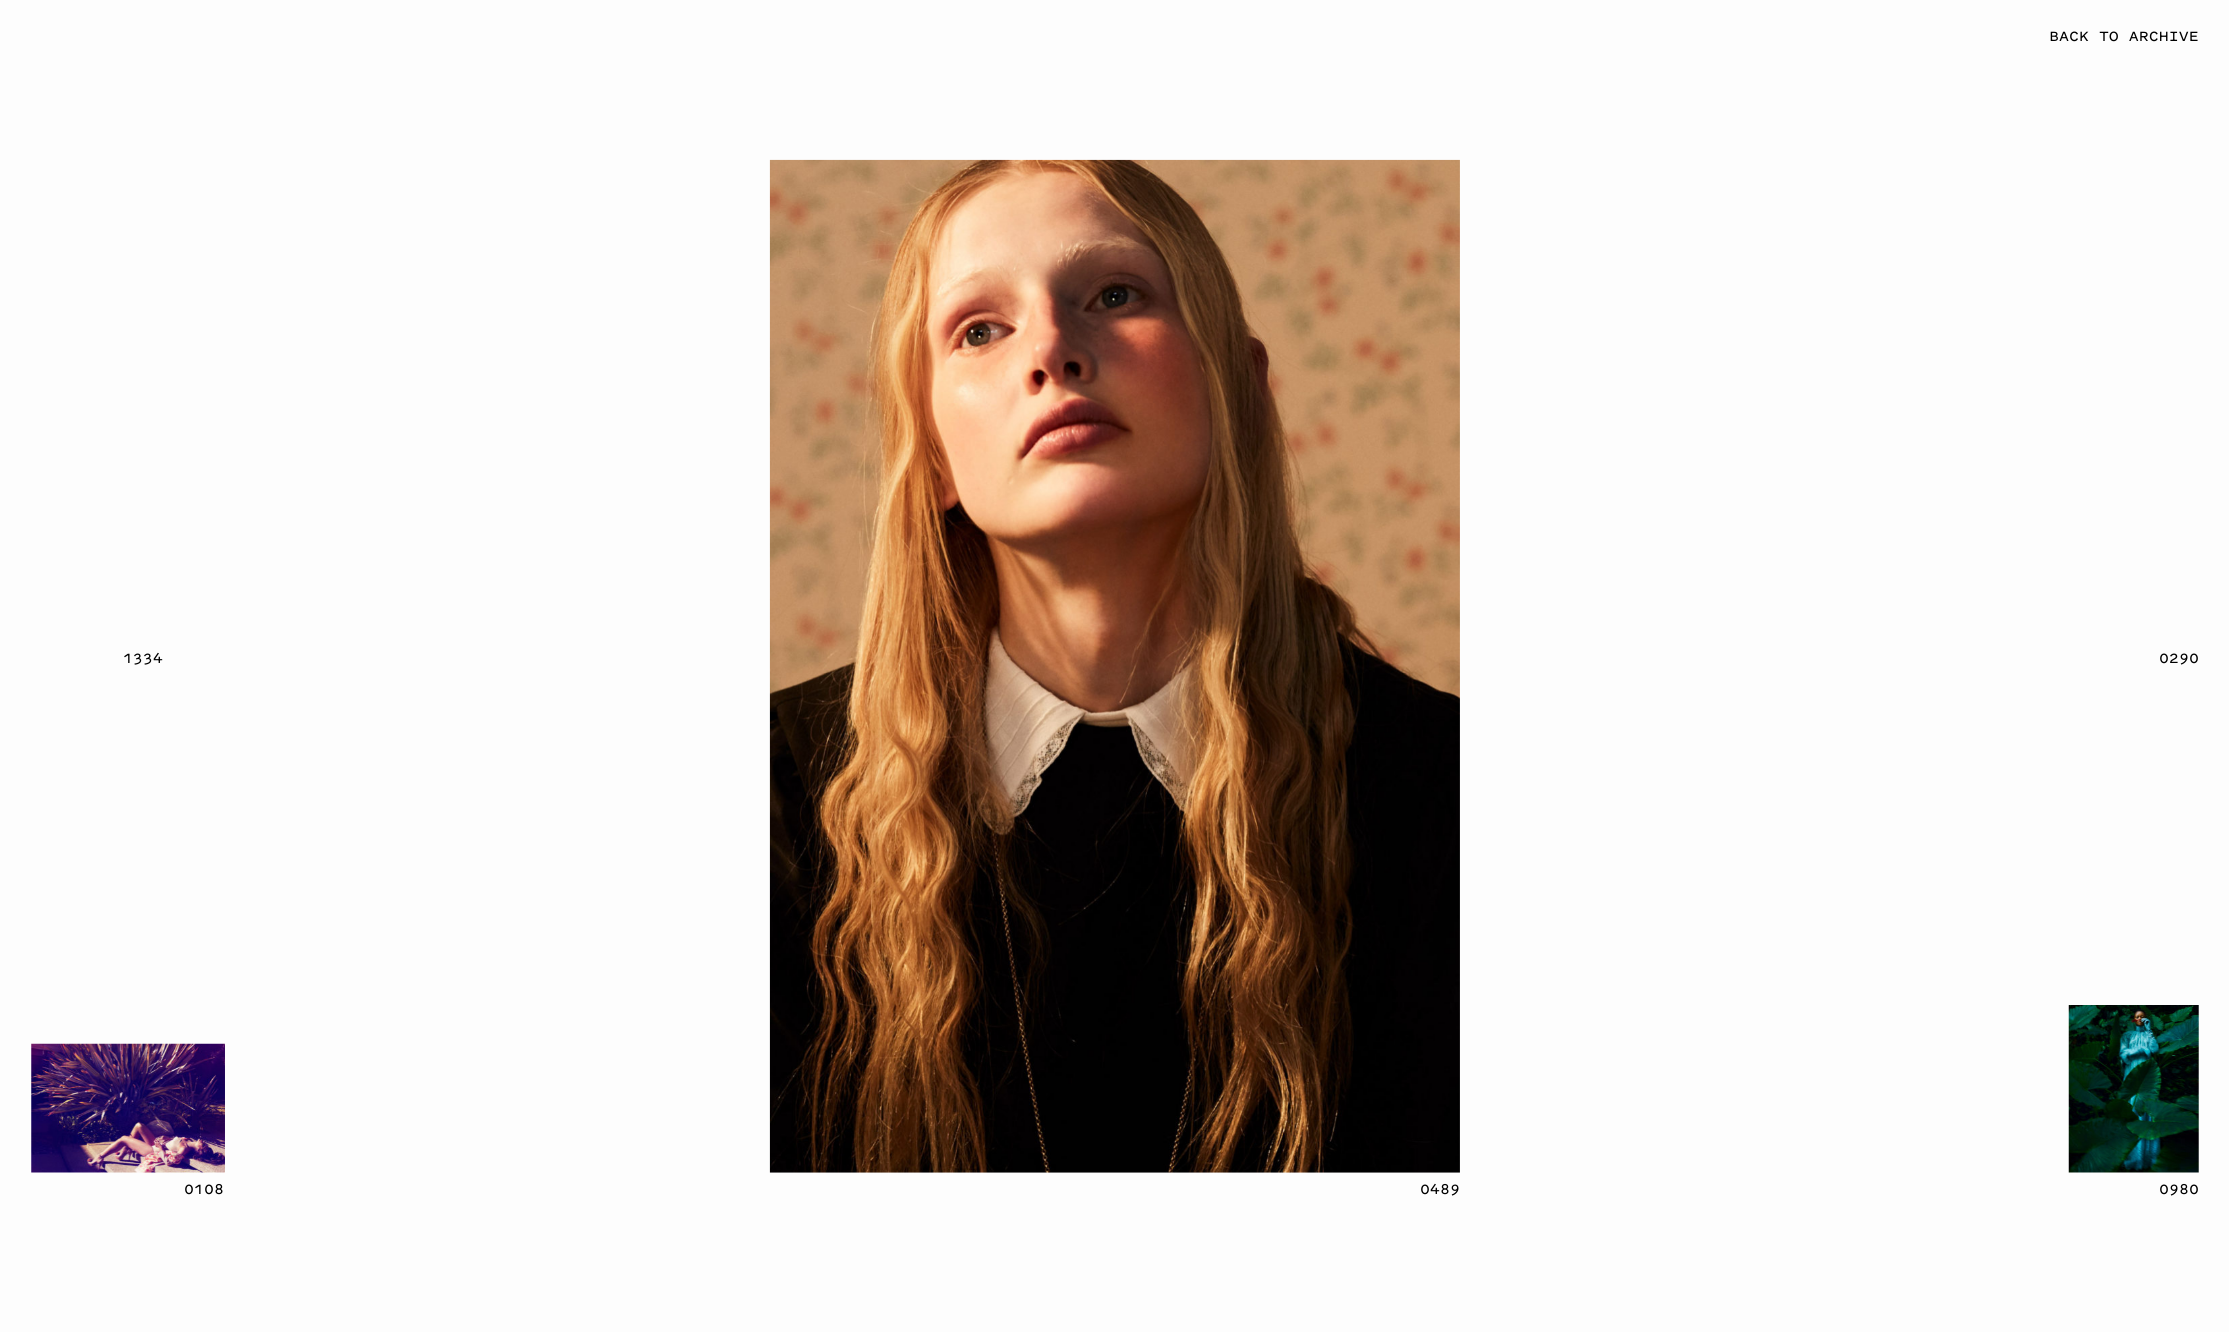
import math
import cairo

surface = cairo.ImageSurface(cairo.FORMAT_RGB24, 2229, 1332)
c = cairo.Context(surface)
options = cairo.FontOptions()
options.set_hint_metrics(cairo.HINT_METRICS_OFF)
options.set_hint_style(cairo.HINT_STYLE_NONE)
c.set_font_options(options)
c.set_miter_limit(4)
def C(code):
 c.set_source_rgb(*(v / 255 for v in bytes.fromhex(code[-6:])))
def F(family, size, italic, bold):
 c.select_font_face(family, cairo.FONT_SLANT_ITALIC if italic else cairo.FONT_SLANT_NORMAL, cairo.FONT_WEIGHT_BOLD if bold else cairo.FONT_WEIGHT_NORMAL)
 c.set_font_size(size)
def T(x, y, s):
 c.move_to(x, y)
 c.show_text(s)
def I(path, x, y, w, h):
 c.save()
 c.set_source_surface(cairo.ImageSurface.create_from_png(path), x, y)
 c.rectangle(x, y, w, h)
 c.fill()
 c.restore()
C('fdfdfd')
c.paint()
F('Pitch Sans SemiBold',16.25,0,0)
C('000000')
T(2049,41,'BACK TO ARCHIVE')
T(123,663,'1334')
T(2159,663,'0290')
I('1.png',31,1043,194,130)
T(184,1194,'0108')
I('2.png',769,159,691,1014)
T(1420,1194,'0489')
I('3.png',2068,1005,131,168)
T(2159,1194,'0980')
surface.write_to_png('o.png')
